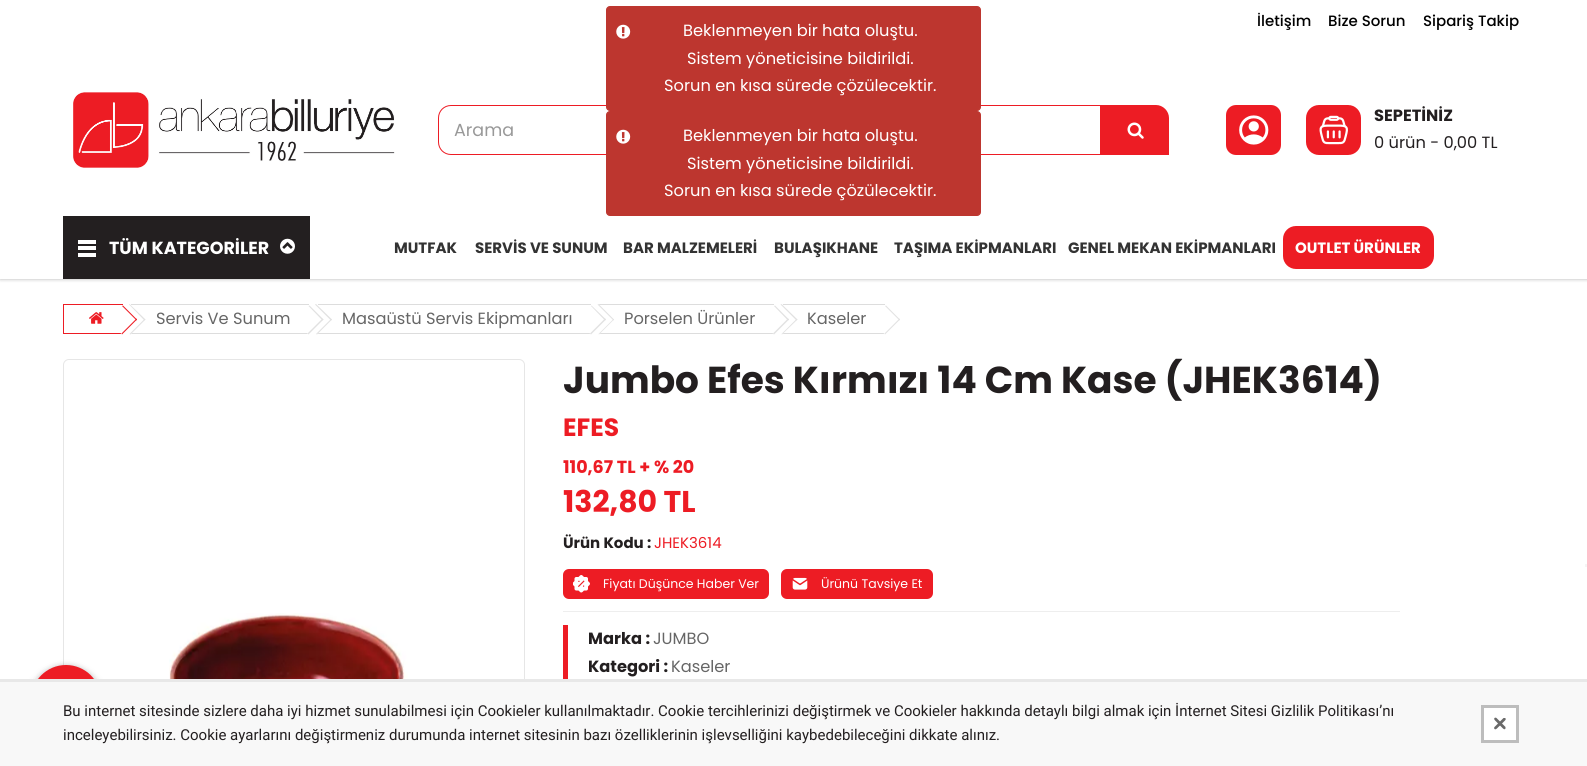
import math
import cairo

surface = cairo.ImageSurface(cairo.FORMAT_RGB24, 1587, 766)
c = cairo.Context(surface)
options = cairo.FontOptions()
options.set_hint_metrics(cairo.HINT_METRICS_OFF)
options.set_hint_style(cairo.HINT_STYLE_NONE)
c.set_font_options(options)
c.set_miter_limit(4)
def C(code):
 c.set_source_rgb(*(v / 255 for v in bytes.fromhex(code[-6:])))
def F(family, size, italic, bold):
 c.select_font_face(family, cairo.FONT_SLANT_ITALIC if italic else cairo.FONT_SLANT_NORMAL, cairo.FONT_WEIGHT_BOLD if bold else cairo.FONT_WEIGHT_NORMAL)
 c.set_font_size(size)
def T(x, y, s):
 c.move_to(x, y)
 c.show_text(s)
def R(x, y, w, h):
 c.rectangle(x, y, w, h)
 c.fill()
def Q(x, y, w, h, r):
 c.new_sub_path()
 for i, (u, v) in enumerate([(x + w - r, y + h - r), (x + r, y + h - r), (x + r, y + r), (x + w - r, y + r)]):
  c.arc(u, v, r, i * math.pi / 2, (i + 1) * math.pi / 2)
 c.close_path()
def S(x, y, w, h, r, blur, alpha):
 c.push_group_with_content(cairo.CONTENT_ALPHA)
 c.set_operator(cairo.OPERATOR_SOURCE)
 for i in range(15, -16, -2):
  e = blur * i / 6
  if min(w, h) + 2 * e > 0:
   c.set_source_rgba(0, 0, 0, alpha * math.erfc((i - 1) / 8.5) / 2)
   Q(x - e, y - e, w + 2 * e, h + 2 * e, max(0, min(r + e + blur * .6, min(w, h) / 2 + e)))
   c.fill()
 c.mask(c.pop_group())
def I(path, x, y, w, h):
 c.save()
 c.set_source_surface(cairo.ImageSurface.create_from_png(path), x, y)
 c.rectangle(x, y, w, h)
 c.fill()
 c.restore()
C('ffffff')
c.paint()
C('000000')
S(0,0,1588,279,0,2,.3)
C('ffffff')
R(0,0,1587,279)
F('Poppins Medium',15,0,0)
C('000000')
T(1257,26,'İletişim')
T(1328,26,'Bize Sorun')
T(1423,26,'Sipariş Takip')
I('1.png',73,92,322,76)
c.new_path()
c.move_to(451,105.5)
c.line_to(1100.5,105.5)
c.line_to(1100.5,154.5)
c.line_to(451,154.5)
c.curve_to(444,154.5,438.5,149,438.5,142)
c.line_to(438.5,118)
c.curve_to(438.5,111,444,105.5,451,105.5)
c.close_path()
C('ed1c24')
c.set_line_width(1)
c.stroke()
F('Poppins',17.5,0,0)
C('999999')
T(454,136,'Arama')
C('ed1c24')
c.new_path()
c.move_to(1101,105)
c.line_to(1156,105)
c.curve_to(1163,105,1169,111,1169,118)
c.line_to(1169,155)
c.line_to(1101,155)
c.close_path()
c.fill()
I('2.png',1127,122,17,17)
Q(1226,105,55,50,10)
c.fill()
I('3.png',1239,115,30,30)
Q(1306,105,55,50,13)
c.fill()
I('4.png',1319,115,29,30)
F('Poppins',16.25,0,1)
C('231f20')
T(1374,121,'SEPETİNİZ')
F('Poppins',16.25,0,0)
T(1374,148,'0 ürün - 0,00 TL')
R(63,216,247,63)
C('ffffff')
R(78,240,18,4)
R(78,246,18,4)
R(78,253,18,4)
F('Poppins',17.5,0,1)
T(109,254,'TÜM KATEGORİLER')
I('5.png',280,238,15,16)
F('Poppins',15,0,1)
C('333333')
T(394,253,'MUTFAK')
T(475,253,'SERVİS VE SUNUM')
T(623,253,'BAR MALZEMELERİ')
T(774,253,'BULAŞIKHANE')
T(894,253,'TAŞIMA EKİPMANLARI')
T(1068,253,'GENEL MEKAN EKİPMANLARI')
C('ed1c24')
Q(1283,226,151,43,13)
c.fill()
C('ffffff')
T(1295,253,'OUTLET ÜRÜNLER')
C('ed1c24')
R(63,304,60,1)
R(63,333,60,1)
R(63,304,1,30)
I('6.png',89,312,15,12)
C('dddddd')
R(131,333,178,1)
R(131,304,178,1)
C('ffffff')
c.new_path()
c.move_to(145.5,319.5)
c.line_to(130.5,334.5)
c.line_to(114.5,319)
c.line_to(129.5,304)
c.close_path()
c.fill()
C('e1e1e1')
c.new_path()
c.move_to(145.5,319.5)
c.line_to(130.5,334.5)
c.line_to(129.5,334)
c.line_to(144.5,319)
c.close_path()
c.fill()
c.new_path()
c.move_to(145.5,319.5)
c.line_to(144.5,320.5)
c.line_to(129,304.5)
c.line_to(129.5,304)
c.close_path()
c.fill()
C('ffffff')
c.new_path()
c.move_to(123,305.5)
c.line_to(137,319.5)
c.line_to(122,334.5)
c.line_to(108,320.5)
c.close_path()
c.fill()
C('ed1c24')
c.new_path()
c.move_to(123,305.5)
c.line_to(137,319.5)
c.line_to(136.5,320.5)
c.line_to(122,306)
c.close_path()
c.fill()
c.new_path()
c.move_to(136.5,318.5)
c.line_to(137,319.5)
c.line_to(122,334.5)
c.line_to(121.5,333.5)
c.close_path()
c.fill()
F('Poppins',16.25,0,0)
C('666666')
T(156,324,'Servis Ve Sunum')
C('dddddd')
R(318,333,273,1)
R(318,304,273,1)
C('ffffff')
c.new_path()
c.move_to(332,319.5)
c.line_to(317,334.5)
c.line_to(301,319)
c.line_to(316,304)
c.close_path()
c.fill()
C('e1e1e1')
c.new_path()
c.move_to(332,319.5)
c.line_to(317,334.5)
c.line_to(316,334)
c.line_to(331,319)
c.close_path()
c.fill()
c.new_path()
c.move_to(332,319.5)
c.line_to(331,320.5)
c.line_to(315,304.5)
c.line_to(316,304)
c.close_path()
c.fill()
C('ffffff')
c.new_path()
c.move_to(309.5,305.5)
c.line_to(323.5,319.5)
c.line_to(308.5,334.5)
c.line_to(294.5,320.5)
c.close_path()
c.fill()
C('e1e1e1')
c.new_path()
c.move_to(309.5,305.5)
c.line_to(323.5,319.5)
c.line_to(322.5,320.5)
c.line_to(308.5,306)
c.close_path()
c.fill()
c.new_path()
c.move_to(322.5,318.5)
c.line_to(323.5,319.5)
c.line_to(308.5,334.5)
c.line_to(307.5,333.5)
c.close_path()
c.fill()
C('666666')
T(342,324,'Masaüstü Servis Ekipmanları')
C('dddddd')
R(599,333,175,1)
R(599,304,175,1)
C('ffffff')
c.new_path()
c.move_to(614,319.5)
c.line_to(599,334.5)
c.line_to(583.5,319)
c.line_to(598.5,304)
c.close_path()
c.fill()
C('e1e1e1')
c.new_path()
c.move_to(614,319.5)
c.line_to(599,334.5)
c.line_to(598.5,334)
c.line_to(613.5,319)
c.close_path()
c.fill()
c.new_path()
c.move_to(614,319.5)
c.line_to(613.5,320.5)
c.line_to(597.5,304.5)
c.line_to(598.5,304)
c.close_path()
c.fill()
C('ffffff')
c.new_path()
c.move_to(591.5,305.5)
c.line_to(606,319.5)
c.line_to(591,334.5)
c.line_to(576.5,320.5)
c.close_path()
c.fill()
C('e1e1e1')
c.new_path()
c.move_to(591.5,305.5)
c.line_to(606,319.5)
c.line_to(605,320.5)
c.line_to(591,306)
c.close_path()
c.fill()
c.new_path()
c.move_to(605,318.5)
c.line_to(606,319.5)
c.line_to(591,334.5)
c.line_to(590,333.5)
c.close_path()
c.fill()
C('666666')
T(624,324,'Porselen Ürünler')
C('dddddd')
R(783,333,102,1)
R(783,304,102,1)
C('ffffff')
c.new_path()
c.move_to(797.5,319.5)
c.line_to(782,334.5)
c.line_to(766.5,319)
c.line_to(781.5,304)
c.close_path()
c.fill()
C('e1e1e1')
c.new_path()
c.move_to(797.5,319.5)
c.line_to(782,334.5)
c.line_to(781.5,334)
c.line_to(796.5,319)
c.close_path()
c.fill()
c.new_path()
c.move_to(797.5,319.5)
c.line_to(796.5,320.5)
c.line_to(780.5,304.5)
c.line_to(781.5,304)
c.close_path()
c.fill()
C('ffffff')
c.new_path()
c.move_to(775,305.5)
c.line_to(789,319.5)
c.line_to(774,334.5)
c.line_to(759.5,320.5)
c.close_path()
c.fill()
C('e1e1e1')
c.new_path()
c.move_to(775,305.5)
c.line_to(789,319.5)
c.line_to(788,320.5)
c.line_to(774,306)
c.close_path()
c.fill()
c.new_path()
c.move_to(788,318.5)
c.line_to(789,319.5)
c.line_to(774,334.5)
c.line_to(773,333.5)
c.close_path()
c.fill()
C('666666')
T(807,324,'Kaseler')
C('ffffff')
c.new_path()
c.move_to(886,305.5)
c.line_to(900,319.5)
c.line_to(885,334.5)
c.line_to(871,320.5)
c.close_path()
c.fill()
C('e1e1e1')
c.new_path()
c.move_to(886,305.5)
c.line_to(900,319.5)
c.line_to(899.5,320.5)
c.line_to(885,306)
c.close_path()
c.fill()
c.new_path()
c.move_to(899.5,318.5)
c.line_to(900,319.5)
c.line_to(885,334.5)
c.line_to(884.5,333.5)
c.close_path()
c.fill()
Q(63.5,359.5,461,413,5.5)
C('e6e6e6')
c.stroke()
I('7.png',169,613,239,66)
F('Poppins',37.5,0,1)
C('231f20')
T(563,393,'Jumbo Efes Kırmızı 14 Cm Kase (JHEK3614)')
F('Poppins',25,0,1)
C('ed1c24')
T(563,436,'EFES')
F('Poppins',17.5,0,1)
T(563,473,'110,67 TL + % 20')
F('Poppins',30,0,1)
T(563,512,'132,80 TL')
F('Poppins',15,0,1)
C('231f20')
T(563,548,'Ürün Kodu :')
F('Poppins',15,0,0)
C('ed1c24')
T(654,548,'JHEK3614')
Q(563,569,206,30,6)
c.fill()
I('8.png',573,575,17,18)
F('Poppins',12.5,0,0)
C('ffffff')
T(603,588,'Fiyatı Düşünce Haber Ver')
C('ed1c24')
Q(781,569,152,30,6)
c.fill()
I('9.png',792,577,16,13)
C('ffffff')
T(821,588,'Ürünü Tavsiye Et')
C('eeeeee')
R(563,611,837,1)
C('ed1c24')
R(563,625,5,55)
F('Poppins',16.25,0,1)
C('231f20')
T(588,644,'Marka :')
F('Poppins',16.25,0,0)
C('666666')
T(653,644,'JUMBO')
F('Poppins',16.25,0,1)
C('231f20')
T(588,672,'Kategori :')
F('Poppins',16.25,0,0)
C('666666')
T(671,672,'Kaseler')
C('bd362f')
Q(606.5,6.5,374,104,3.5)
c.fill_preserve()
c.stroke()
I('10.png',616,24,15,15)
C('ffffff')
T(683,36,'Beklenmeyen bir hata oluştu.')
T(687,64,'Sistem yöneticisine bildirildi.')
T(664,91,'Sorun en kısa sürede çözülecektir.')
C('bd362f')
Q(606.5,111.5,374,104,3.5)
c.fill_preserve()
c.stroke()
I('10.png',616,129,15,15)
C('ffffff')
T(683,141,'Beklenmeyen bir hata oluştu.')
T(687,169,'Sistem yöneticisine bildirildi.')
T(664,196,'Sorun en kısa sürede çözülecektir.')
C('f5f5f5')
R(1585,564,2,3)
C('000000')
S(31,670,70,70,35,5,.28)
S(31,665,70,70,35,2.5,.14)
C('ed1c24')
c.arc(66,700,35,0,2 * math.pi)
c.fill()
C('f8f8f8')
R(0,682,1587,84)
C('e8e8e8')
R(0,679,1587,3)
F('Roboto',15,0,0)
C('231f20')
T(63,716,'Bu internet sitesinde sizlere daha iyi hizmet sunulabilmesi için Cookieler kullanılmaktadır. Cookie tercihlerinizi değiştirmek ve Cookieler hakkında detaylı bilgi almak için İnternet Sitesi Gizlilik Politikası’nı')
C('ffffff')
c.rectangle(1482.5,706.5,35,35)
c.fill_preserve()
C('bdbdbd')
c.set_line_width(3)
c.stroke()
C('696969')
c.new_path()
c.move_to(1496.5,718)
c.line_to(1505.5,727)
c.line_to(1505.5,728.5)
c.curve_to(1504.5,730.5,1502.5,728,1502,727.5)
c.line_to(1497.5,723)
c.curve_to(1497,722,1493,719.5,1494.5,718)
c.curve_to(1495,717.5,1496,717.5,1496.5,718)
c.close_path()
c.fill()
c.new_path()
c.move_to(1494.5,727)
c.line_to(1503.5,718)
c.line_to(1505,718)
c.curve_to(1507,719,1504.5,721,1504,721.5)
c.line_to(1499.5,726)
c.curve_to(1498.5,726.5,1496,730.5,1494.5,729)
c.curve_to(1494,728.5,1494,727.5,1494.5,727)
c.close_path()
c.fill()
C('231f20')
T(63,740,'inceleyebilirsiniz. Cookie ayarlarını değiştirmeniz durumunda internet sitesinin bazı özelliklerinin işlevselliğini kaybedebileceğini dikkate alınız.')
surface.write_to_png('o.png')
